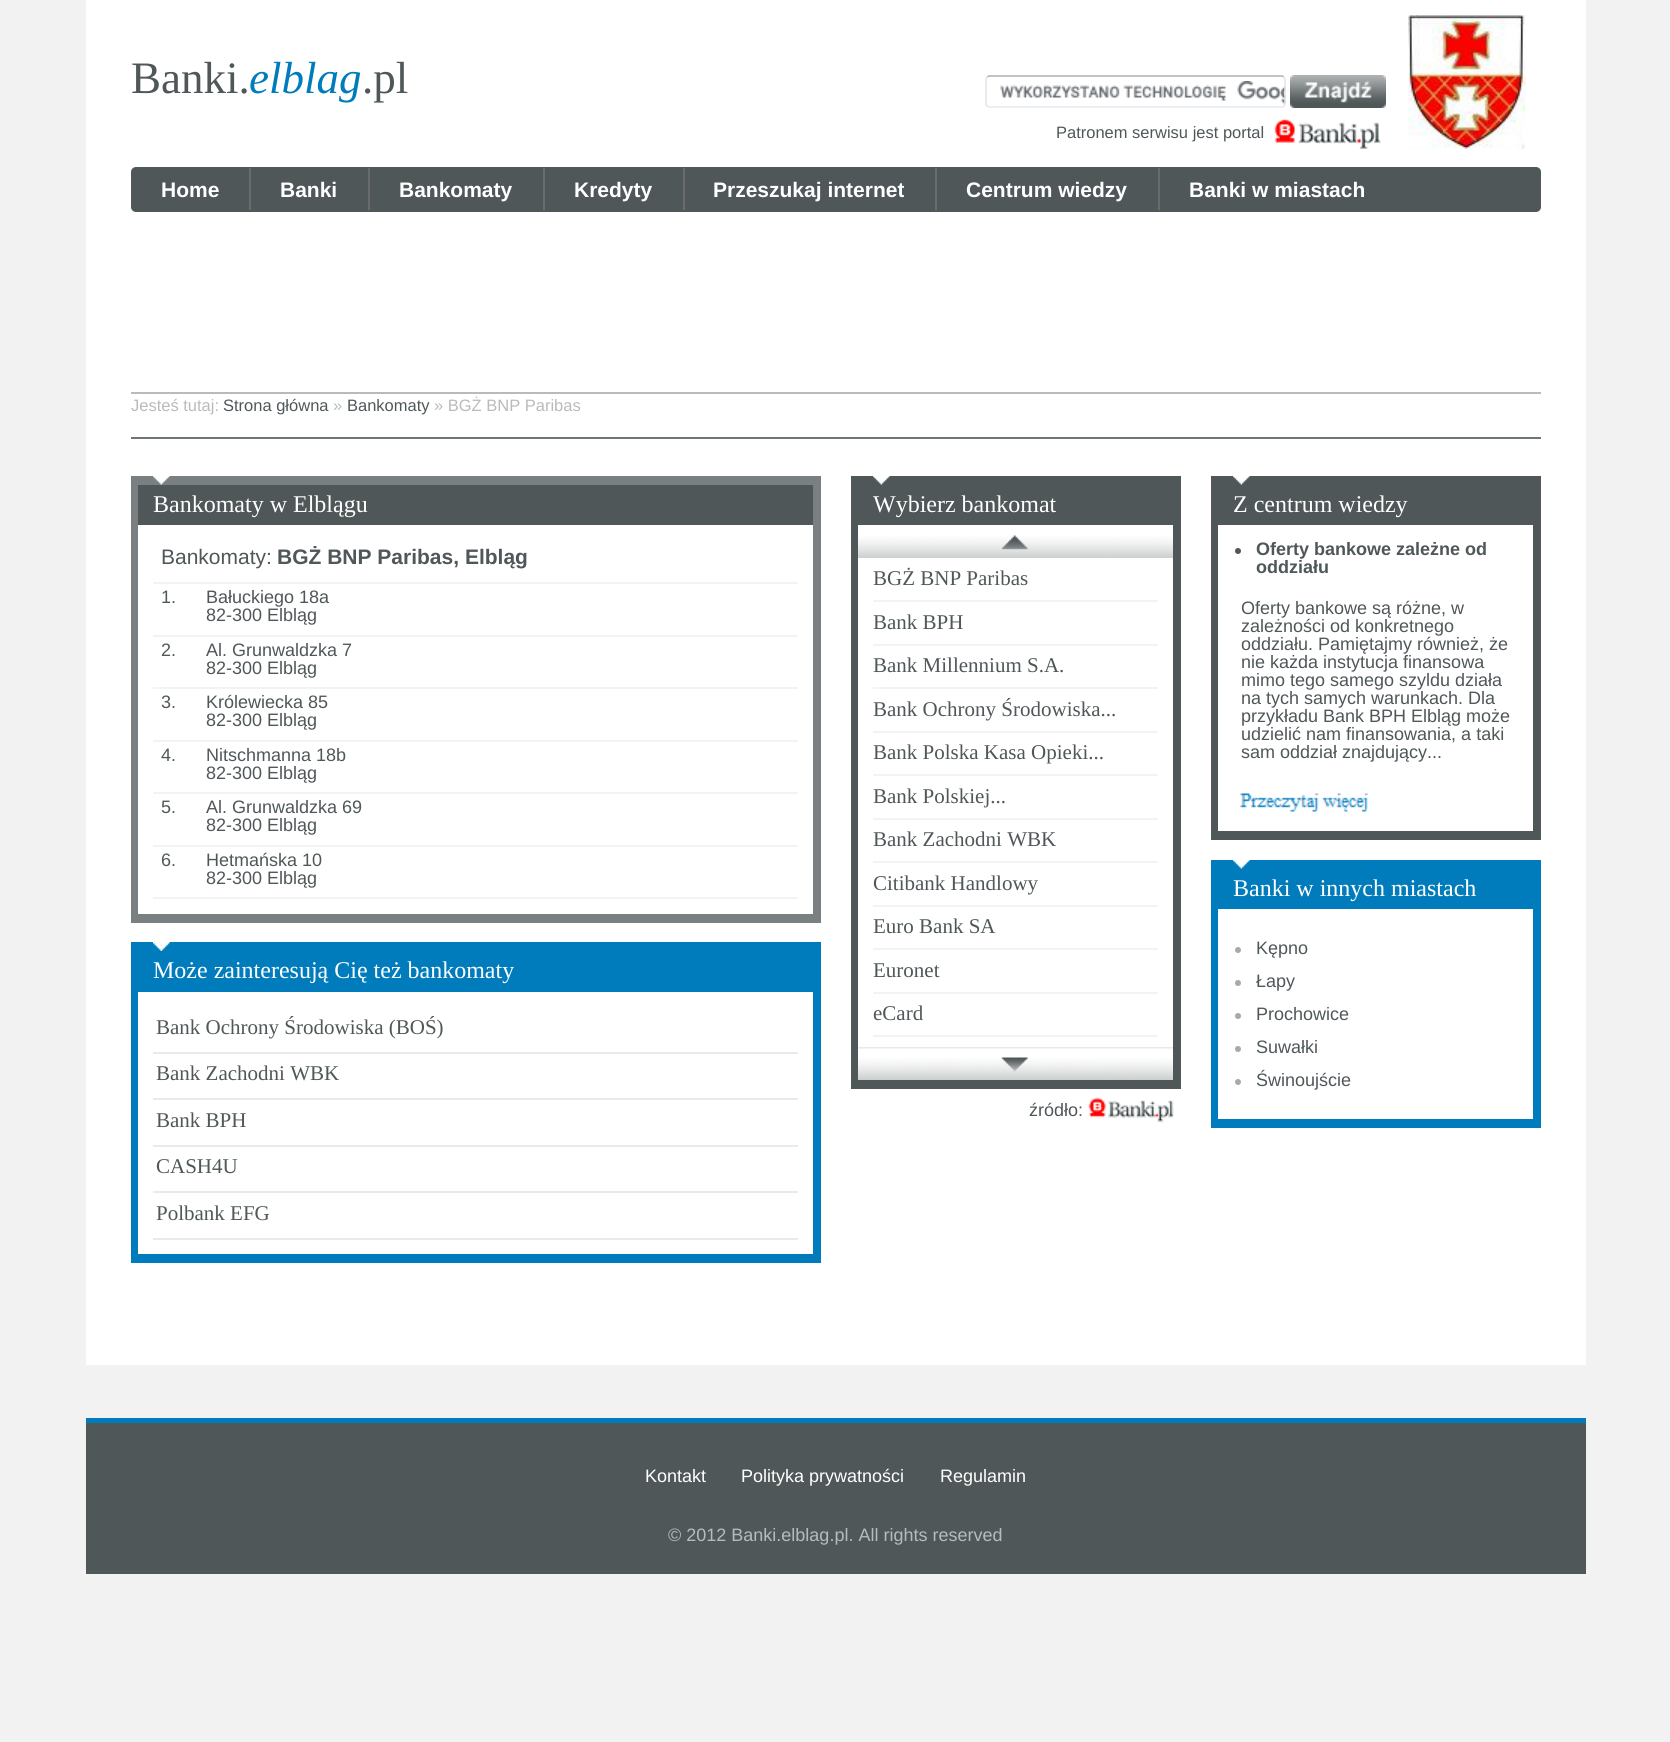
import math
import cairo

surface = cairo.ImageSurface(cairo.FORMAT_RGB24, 1670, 1742)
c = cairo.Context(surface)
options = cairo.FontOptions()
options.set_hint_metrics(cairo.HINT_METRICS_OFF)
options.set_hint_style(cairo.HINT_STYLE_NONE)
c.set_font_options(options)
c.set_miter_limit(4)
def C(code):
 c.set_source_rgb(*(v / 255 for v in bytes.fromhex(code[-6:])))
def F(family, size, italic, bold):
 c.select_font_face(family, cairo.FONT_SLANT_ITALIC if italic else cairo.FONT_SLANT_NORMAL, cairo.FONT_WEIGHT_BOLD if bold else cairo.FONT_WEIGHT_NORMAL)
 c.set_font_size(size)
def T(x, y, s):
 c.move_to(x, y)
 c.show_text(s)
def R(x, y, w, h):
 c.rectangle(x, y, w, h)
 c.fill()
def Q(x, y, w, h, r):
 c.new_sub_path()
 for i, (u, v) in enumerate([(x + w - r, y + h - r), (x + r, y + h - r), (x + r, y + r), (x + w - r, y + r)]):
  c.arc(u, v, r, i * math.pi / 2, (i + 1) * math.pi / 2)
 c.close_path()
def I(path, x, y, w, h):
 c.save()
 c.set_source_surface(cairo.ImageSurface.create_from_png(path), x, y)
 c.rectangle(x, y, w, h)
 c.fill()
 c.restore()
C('f2f2f2')
c.paint()
C('ffffff')
R(86,0,1500,1365)
F('Liberation Serif',45,0,0)
C('4f5759')
T(131,93,'Banki.')
F('Liberation Serif',45,1,0)
C('007cbc')
T(249,93,'elblag')
F('Liberation Serif',45,0,0)
C('4f5759')
T(362,93,'.pl')
I('1.png',1000,81,286,23)
c.new_path()
c.move_to(987.5,77)
c.curve_to(988,76,989,76,990,76)
c.line_to(1281,76)
c.curve_to(1282,76,1283,76,1283.5,77)
C('abadb3')
c.set_line_width(1.5)
c.stroke()
c.new_path()
c.move_to(1283.5,77)
c.curve_to(1284.5,77.5,1285,78.5,1285,79.5)
c.line_to(1285,103.5)
c.curve_to(1285,104.5,1284.5,105.5,1283.5,106)
C('e2e3ea')
c.stroke()
c.new_path()
c.move_to(1283.5,106)
c.curve_to(1283,107,1282,107,1281,107)
c.line_to(990,107)
c.curve_to(989,107,988,107,987.5,106)
C('e3e9ef')
c.stroke()
c.new_path()
c.move_to(987.5,106)
c.curve_to(986.5,105.5,986,104.5,986,103.5)
c.line_to(986,79.5)
c.curve_to(986,78.5,986.5,77.5,987.5,77)
C('e2e3ea')
c.stroke()
I('2.png',1290,75,96,33)
F('Liberation Sans',16.5,0,0)
C('4f5759')
T(1056,138,'Patronem serwisu jest portal')
I('3.png',1274,119,107,31)
I('4.png',1408,15,118,134)
Q(131,167,1410,45,5)
c.fill()
C('6b6b6b')
R(249,168,2,42)
F('Liberation Sans',21,0,1)
C('ffffff')
T(161,197,'Home')
C('6b6b6b')
R(368,168,2,42)
C('ffffff')
T(280,197,'Banki')
C('6b6b6b')
R(543,168,2,42)
C('ffffff')
T(399,197,'Bankomaty')
C('6b6b6b')
R(683,168,2,42)
C('ffffff')
T(574,197,'Kredyty')
C('6b6b6b')
R(935,168,2,42)
C('ffffff')
T(713,197,'Przeszukaj internet')
C('6b6b6b')
R(1158,168,2,42)
C('ffffff')
T(966,197,'Centrum wiedzy')
T(1189,197,'Banki w miastach')
C('b8bbbc')
R(131,392,1410,2)
C('6f7678')
R(131,437,1410,2)
F('Liberation Sans',16.5,0,0)
C('b8bbbc')
T(131,411,'Jesteś tutaj:')
C('4f5759')
T(223,411,'Strona główna')
C('b8bbbc')
T(333,411,'»')
C('4f5759')
T(347,411,'Bankomaty')
C('b8bbbc')
T(434,411,'» BGŻ BNP Paribas')
C('7a8082')
R(131,476,690,447)
I('5.png',153,476,17,9)
C('4f5759')
R(138,485,675,40)
F('Liberation Serif',24,0,0)
C('ffffff')
T(153,512,'Bankomaty w Elblągu')
R(138,525,675,389)
C('f2f3f3')
R(153,582,645,2)
F('Liberation Sans',21,0,0)
C('4f5759')
T(161,564,'Bankomaty:')
F('Liberation Sans',21,0,1)
T(277,564,'BGŻ BNP Paribas, Elbląg')
C('f2f3f3')
R(153,635,645,2)
F('Liberation Sans',18,0,0)
C('4f5759')
T(161,603,'1.')
T(206,603,'Bałuckiego 18a')
T(206,621,'82-300 Elbląg')
C('f2f3f3')
R(153,687,645,2)
C('4f5759')
T(161,656,'2.')
T(206,656,'Al. Grunwaldzka 7')
T(206,674,'82-300 Elbląg')
C('f2f3f3')
R(153,740,645,2)
C('4f5759')
T(161,708,'3.')
T(206,708,'Królewiecka 85')
T(206,726,'82-300 Elbląg')
C('f2f3f3')
R(153,792,645,2)
C('4f5759')
T(161,761,'4.')
T(206,761,'Nitschmanna 18b')
T(206,779,'82-300 Elbląg')
C('f2f3f3')
R(153,845,645,2)
C('4f5759')
T(161,813,'5.')
T(206,813,'Al. Grunwaldzka 69')
T(206,831,'82-300 Elbląg')
C('f2f3f3')
R(153,897,645,2)
C('4f5759')
T(161,866,'6.')
T(206,866,'Hetmańska 10')
T(206,884,'82-300 Elbląg')
C('007cbc')
R(131,942,690,321)
I('6.png',153,942,17,9)
F('Liberation Serif',24,0,0)
C('ffffff')
T(153,978,'Może zainteresują Cię też bankomaty')
R(138,992,675,262)
C('eaeaeb')
R(153,1052,645,2)
F('Liberation Serif',21,0,0)
C('4f5759')
T(156,1034,'Bank Ochrony Środowiska (BOŚ)')
C('eaeaeb')
R(153,1098,645,2)
C('4f5759')
T(156,1080,'Bank Zachodni WBK')
C('eaeaeb')
R(153,1145,645,2)
C('4f5759')
T(156,1127,'Bank BPH')
C('eaeaeb')
R(153,1191,645,2)
C('4f5759')
T(156,1173,'CASH4U')
C('eaeaeb')
R(153,1238,645,2)
C('4f5759')
T(156,1220,'Polbank EFG')
R(851,476,330,613)
I('7.png',873,476,17,9)
F('Liberation Serif',24,0,0)
C('ffffff')
T(873,512,'Wybierz bankomat')
R(858,525,315,522)
I('8.png',858,535,315,23)
C('f2f3f3')
R(873,600,285,2)
F('Liberation Serif',21,0,0)
C('4f5759')
T(873,585,'BGŻ BNP Paribas')
C('f2f3f3')
R(873,644,285,2)
C('4f5759')
T(873,629,'Bank BPH')
C('f2f3f3')
R(873,687,285,2)
C('4f5759')
T(873,672,'Bank Millennium S.A.')
C('f2f3f3')
R(873,731,285,2)
C('4f5759')
T(873,716,'Bank Ochrony Środowiska...')
C('f2f3f3')
R(873,774,285,2)
C('4f5759')
T(873,759,'Bank Polska Kasa Opieki...')
C('f2f3f3')
R(873,818,285,2)
C('4f5759')
T(873,803,'Bank Polskiej...')
C('f2f3f3')
R(873,861,285,2)
C('4f5759')
T(873,846,'Bank Zachodni WBK')
C('f2f3f3')
R(873,905,285,2)
C('4f5759')
T(873,890,'Citibank Handlowy')
C('f2f3f3')
R(873,948,285,2)
C('4f5759')
T(873,933,'Euro Bank SA')
C('f2f3f3')
R(873,992,285,2)
C('4f5759')
T(873,977,'Euronet')
C('f2f3f3')
R(873,1035,285,2)
C('4f5759')
T(873,1020,'eCard')
I('9.png',858,1047,315,33)
F('Liberation Sans',18,0,0)
T(1029,1116,'źródło:')
I('10.png',1088,1097,86,26)
R(1211,476,330,364)
I('11.png',1233,476,17,9)
F('Liberation Serif',24,0,0)
C('ffffff')
T(1233,512,'Z centrum wiedzy')
R(1218,525,315,306)
C('4f5759')
c.new_path()
c.arc(1238,551,3,0,2 * math.pi)
c.fill()
F('Liberation Sans',18,0,1)
T(1256,555,'Oferty bankowe zależne od')
T(1256,573,'oddziału')
F('Liberation Sans',18,0,0)
T(1241,614,'Oferty bankowe są różne, w')
T(1241,632,'zależności od konkretnego')
T(1241,650,'oddziału. Pamiętajmy również, że')
T(1241,668,'nie każda instytucja finansowa')
T(1241,686,'mimo tego samego szyldu działa')
T(1241,704,'na tych samych warunkach. Dla')
T(1241,722,'przykładu Bank BPH Elbląg może')
T(1241,740,'udzielić nam finansowania, a taki')
T(1241,758,'sam oddział znajdujący...')
I('12.png',1240,793,128,19)
C('007cbc')
R(1211,860,330,268)
I('13.png',1233,860,17,9)
F('Liberation Serif',24,0,0)
C('ffffff')
T(1233,896,'Banki w innych miastach')
R(1218,909,315,210)
C('a9a9a9')
c.new_path()
c.arc(1238,950,3,0,2 * math.pi)
c.fill()
F('Liberation Sans',18,0,0)
C('4f5759')
T(1256,954,'Kępno')
C('a9a9a9')
c.new_path()
c.arc(1238,983,3,0,2 * math.pi)
c.fill()
C('4f5759')
T(1256,987,'Łapy')
C('a9a9a9')
c.new_path()
c.arc(1238,1016,3,0,2 * math.pi)
c.fill()
C('4f5759')
T(1256,1020,'Prochowice')
C('a9a9a9')
c.new_path()
c.arc(1238,1049,3,0,2 * math.pi)
c.fill()
C('4f5759')
T(1256,1053,'Suwałki')
C('a9a9a9')
c.new_path()
c.arc(1238,1082,3,0,2 * math.pi)
c.fill()
C('4f5759')
T(1256,1086,'Świnoujście')
R(86,1423,1500,151)
C('007cbc')
R(86,1418,1500,5)
C('ffffff')
T(645,1482,'Kontakt')
T(741,1482,'Polityka prywatności')
T(940,1482,'Regulamin')
C('b8bbbc')
T(668,1541,'© 2012 Banki.elblag.pl. All rights reserved')
surface.write_to_png('o.png')
